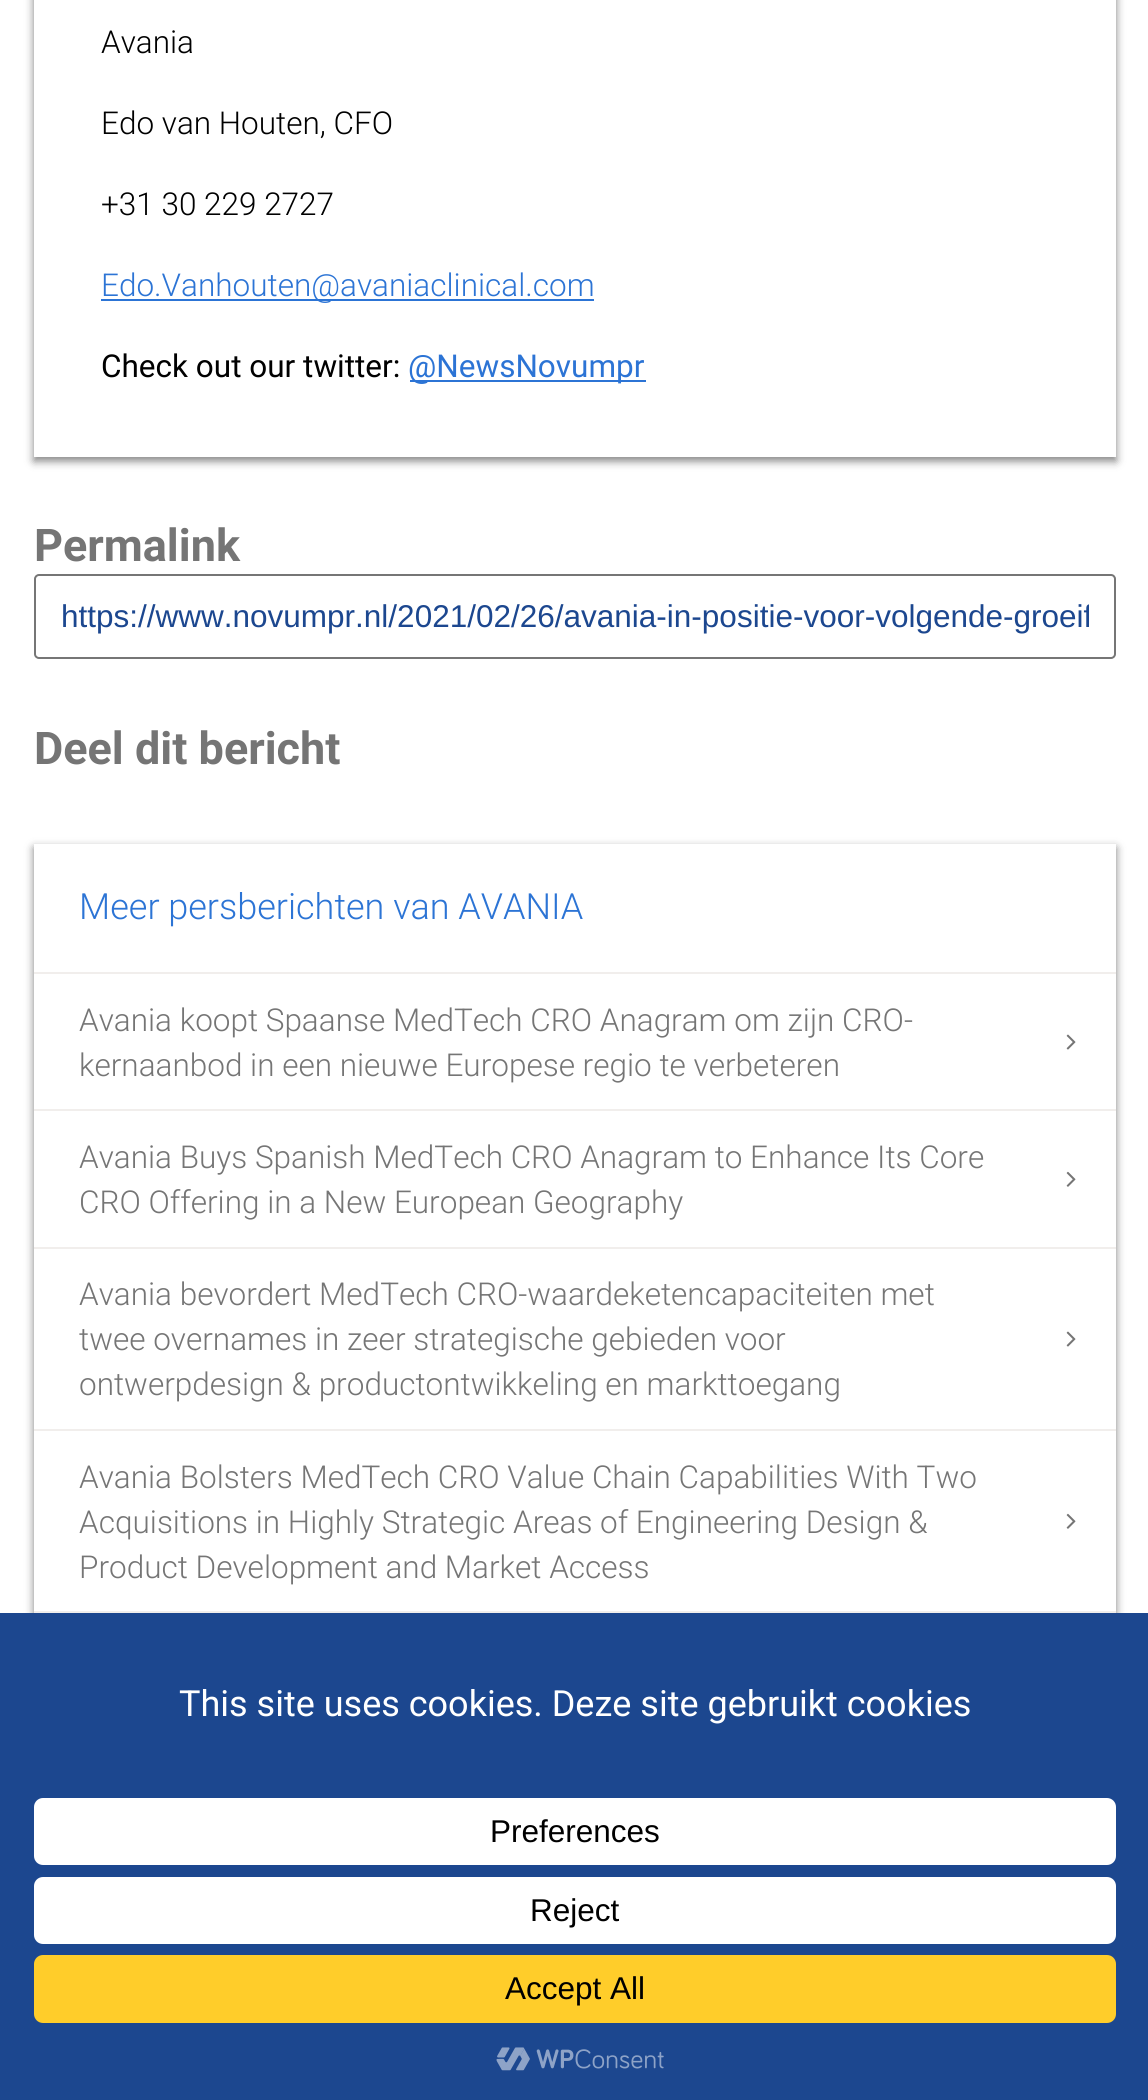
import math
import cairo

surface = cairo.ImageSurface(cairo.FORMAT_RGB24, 1148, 2100)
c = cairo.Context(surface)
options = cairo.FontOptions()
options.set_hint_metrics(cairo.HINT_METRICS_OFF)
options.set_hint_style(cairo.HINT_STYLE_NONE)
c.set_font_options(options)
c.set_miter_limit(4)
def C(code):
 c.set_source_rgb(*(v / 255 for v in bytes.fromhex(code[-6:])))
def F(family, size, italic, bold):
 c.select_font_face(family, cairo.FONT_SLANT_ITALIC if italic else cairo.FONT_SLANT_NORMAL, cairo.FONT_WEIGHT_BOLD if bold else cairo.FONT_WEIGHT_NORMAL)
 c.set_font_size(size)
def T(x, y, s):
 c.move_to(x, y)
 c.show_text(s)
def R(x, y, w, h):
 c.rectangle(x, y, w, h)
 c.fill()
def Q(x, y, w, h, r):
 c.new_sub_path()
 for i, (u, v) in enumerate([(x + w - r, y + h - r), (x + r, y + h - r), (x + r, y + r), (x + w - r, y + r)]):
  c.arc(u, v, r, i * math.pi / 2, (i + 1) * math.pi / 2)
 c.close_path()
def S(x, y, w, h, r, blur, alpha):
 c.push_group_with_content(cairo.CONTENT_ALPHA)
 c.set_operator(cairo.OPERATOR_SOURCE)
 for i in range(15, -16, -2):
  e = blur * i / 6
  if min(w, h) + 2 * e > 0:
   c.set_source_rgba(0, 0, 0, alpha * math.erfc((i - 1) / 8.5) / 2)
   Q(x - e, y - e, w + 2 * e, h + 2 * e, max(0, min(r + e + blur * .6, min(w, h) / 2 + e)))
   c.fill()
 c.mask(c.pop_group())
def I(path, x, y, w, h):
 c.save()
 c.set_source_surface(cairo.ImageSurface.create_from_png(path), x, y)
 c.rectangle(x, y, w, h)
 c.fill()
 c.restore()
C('ffffff')
c.paint()
C('000000')
S(34,-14,1082,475,0,4.5,.5)
C('ffffff')
R(34,0,1082,457)
F('Roboto Light',31.5,0,0)
C('000000')
T(101,53,'Avania')
T(101,134,'Edo van Houten, CFO')
T(101,215,'+31 30 229 2727')
C('2c74d5')
R(101,299,493,2)
T(101,296,'Edo.Vanhouten@avaniaclinical.com')
F('Roboto',31.5,0,0)
C('000000')
T(101,377,'Check out our twitter:')
C('2c74d5')
R(410,380,236,2)
T(408,377,'@NewsNovumpr')
F('Roboto',45,0,1)
C('757575')
T(34,561,'Permalink')
Q(35,575,1080,83,4)
C('767676')
c.stroke()
c.save()
c.rectangle(61,599,1028,36)
c.clip()
F('Liberation Sans',31.5,0,0)
C('1c478f')
T(61,627,'https://www.novumpr.nl/2021/02/26/avania-in-positie-voor-volgende-groeif')
c.restore()
C('757575')
T(34,764,'Deel dit bericht')
c.save()
c.set_fill_rule(cairo.FILL_RULE_EVEN_ODD)
c.new_path()
c.move_to(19,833)
c.line_to(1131,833)
c.line_to(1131,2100)
c.line_to(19,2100)
c.close_path()
c.move_to(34,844)
c.line_to(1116,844)
c.line_to(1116,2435)
c.line_to(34,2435)
c.close_path()
c.clip()
C('000000')
S(34,848,1082,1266,0,4.5,.5)
c.restore()
F('Roboto Light',36,0,0)
C('2c74d5')
T(79,919,'Meer persberichten van AVANIA')
C('f1eeec')
R(34,972,1082,2)
F('Roboto Light',31.5,0,0)
C('757575')
T(79,1031,'Avania koopt Spaanse MedTech CRO Anagram om zijn CRO-')
I('1.png',1066,1034,10,16)
T(79,1076,'kernaanbod in een nieuwe Europese regio te verbeteren')
C('f1eeec')
R(34,1109,1082,2)
C('757575')
T(79,1168,'Avania Buys Spanish MedTech CRO Anagram to Enhance Its Core')
I('2.png',1066,1171,10,16)
T(79,1213,'CRO Offering in a New European Geography')
C('f1eeec')
R(34,1247,1082,2)
C('757575')
T(79,1305,'Avania bevordert MedTech CRO-waardeketencapaciteiten met')
T(79,1350,'twee overnames in zeer strategische gebieden voor')
I('1.png',1066,1331,10,16)
T(79,1395,'ontwerpdesign & productontwikkeling en markttoegang')
C('f1eeec')
R(34,1429,1082,2)
C('757575')
T(79,1488,'Avania Bolsters MedTech CRO Value Chain Capabilities With Two')
T(79,1533,'Acquisitions in Highly Strategic Areas of Engineering Design &')
I('2.png',1066,1513,10,16)
T(79,1578,'Product Development and Market Access')
C('f1eeec')
R(34,1611,1082,2)
C('1c478f')
R(0,1613,1148,487)
F('Roboto',36,0,0)
C('ffffff')
T(179,1716,'This site uses cookies. Deze site gebruikt cookies')
Q(34,1798,1082,67,9)
c.fill()
F('Liberation Sans',31.5,0,0)
C('000000')
T(490,1842,'Preferences')
C('ffffff')
Q(34,1877,1082,67,9)
c.fill()
C('000000')
T(530,1921,'Reject')
C('ffcd2a')
Q(34,1955,1082,68,9)
c.fill()
C('000000')
T(505,1999,'Accept All')
I('3.png',496,2047,168,24)
surface.write_to_png('o.png')
